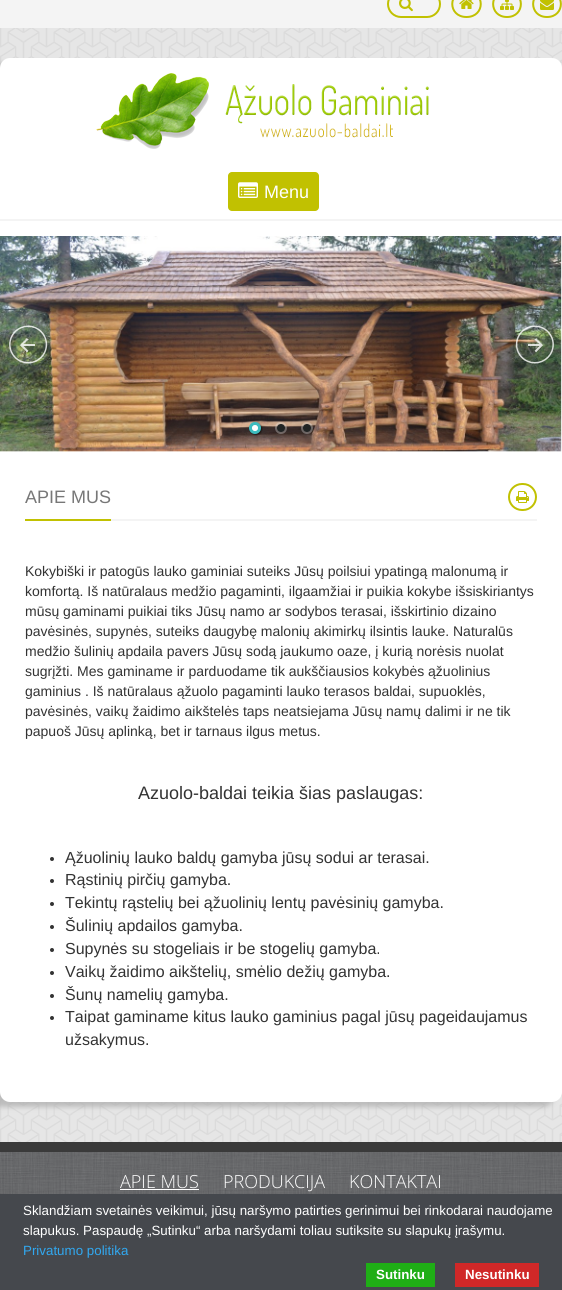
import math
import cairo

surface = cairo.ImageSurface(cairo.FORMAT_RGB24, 562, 1290)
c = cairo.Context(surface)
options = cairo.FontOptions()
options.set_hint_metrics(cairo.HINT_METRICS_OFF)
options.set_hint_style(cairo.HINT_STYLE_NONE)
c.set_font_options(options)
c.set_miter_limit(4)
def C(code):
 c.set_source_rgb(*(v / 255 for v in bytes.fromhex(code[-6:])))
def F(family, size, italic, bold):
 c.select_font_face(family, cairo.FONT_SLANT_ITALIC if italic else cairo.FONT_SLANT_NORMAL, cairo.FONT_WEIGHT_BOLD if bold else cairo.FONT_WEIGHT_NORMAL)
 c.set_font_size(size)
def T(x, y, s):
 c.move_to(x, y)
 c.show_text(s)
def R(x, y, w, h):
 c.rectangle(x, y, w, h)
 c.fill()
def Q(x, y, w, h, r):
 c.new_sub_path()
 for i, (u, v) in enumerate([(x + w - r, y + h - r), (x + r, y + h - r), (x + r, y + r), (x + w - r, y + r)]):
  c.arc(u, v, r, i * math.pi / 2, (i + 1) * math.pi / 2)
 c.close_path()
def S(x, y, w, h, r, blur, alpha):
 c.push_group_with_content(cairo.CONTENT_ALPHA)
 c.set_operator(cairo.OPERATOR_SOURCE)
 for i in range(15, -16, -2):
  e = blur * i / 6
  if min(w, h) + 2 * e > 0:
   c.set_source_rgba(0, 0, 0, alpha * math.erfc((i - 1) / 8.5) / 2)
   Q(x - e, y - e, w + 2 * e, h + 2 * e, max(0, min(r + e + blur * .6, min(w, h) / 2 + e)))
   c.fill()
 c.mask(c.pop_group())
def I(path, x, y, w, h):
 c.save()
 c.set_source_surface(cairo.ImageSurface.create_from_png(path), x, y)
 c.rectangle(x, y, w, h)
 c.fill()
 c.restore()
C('f4f4f4')
c.paint()
Q(388,-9,52,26,13)
C('c1c101')
c.stroke()
I('1.png',399,0,14,12)
c.new_path()
c.move_to(466.5,-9)
c.curve_to(485.5,-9,485.5,17,466.5,17)
c.curve_to(447.5,17,447.5,-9,466.5,-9)
c.close_path()
c.stroke()
I('2.png',459,0,15,9)
c.new_path()
c.move_to(507,-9)
c.curve_to(525.5,-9,525.5,17,507,17)
c.curve_to(488.5,17,488.5,-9,507,-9)
c.close_path()
c.stroke()
I('3.png',500,0,14,10)
c.new_path()
c.move_to(547,-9)
c.curve_to(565.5,-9,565.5,17,547,17)
c.curve_to(528.5,17,528.5,-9,547,-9)
c.close_path()
c.stroke()
I('4.png',540,0,14,10)
I('5.png',0,28,562,1114)
C('afafaf')
S(-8,63,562,1044,10,2.5,.75)
C('ffffff')
c.new_path()
c.move_to(10,58)
c.line_to(552,58)
c.curve_to(557.5,58,562,62.5,562,68)
c.line_to(562,236)
c.line_to(0,236)
c.line_to(0,68)
c.curve_to(0,62.5,4.5,58,10,58)
c.close_path()
c.fill()
I('6.png',96,73,333,76)
C('f4f4f4')
R(0,219,562,2)
C('c1c101')
Q(228,172,91,39,4)
c.fill()
I('7.png',238,182,20,16)
F('Liberation Sans',18,0,0)
C('ffffff')
T(264,198,'Menu')
I('8.png',0,236,562,216)
I('9.png',9,325,39,39)
I('10.png',515,325,39,39)
I('11.png',249,422,14,14)
I('12.png',275,422,12,12)
I('13.png',301,422,12,12)
c.new_path()
c.move_to(0,452)
c.line_to(562,452)
c.line_to(562,1092)
c.curve_to(562,1097.5,557.5,1102,552,1102)
c.line_to(10,1102)
c.curve_to(4.5,1102,0,1097.5,0,1092)
c.close_path()
c.fill()
C('f4f4f4')
R(111,519,426,2)
C('c1c101')
R(25,519,86,2)
C('777777')
T(25,503,'APIE MUS')
Q(509,484,27,26,13)
C('c1c101')
c.stroke()
I('14.png',516,491,13,12)
F('Liberation Sans',14,0,0)
C('333333')
T(25,576,'Kokybiški ir patogūs lauko gaminiai suteiks Jūsų poilsiui ypatingą malonumą ir')
T(25,596,'komfortą. Iš natūralaus medžio pagaminti, ilgaamžiai ir puikia kokybe išsiskiriantys')
T(25,616,'mūsų gaminami puikiai tiks Jūsų namo ar sodybos terasai, išskirtinio dizaino')
T(25,636,'pavėsinės, supynės, suteiks daugybę malonių akimirkų ilsintis lauke. Naturalūs')
T(25,656,'medžio šulinių apdaila pavers Jūsų sodą jaukumo oaze, į kurią norėsis nuolat')
T(25,676,'sugrįžti. Mes gaminame ir parduodame tik aukščiausios kokybės ąžuolinius')
T(25,696,'gaminius . Iš natūralaus ąžuolo pagaminti lauko terasos baldai, supuoklės,')
T(25,716,'pavėsinės, vaikų žaidimo aikštelės taps neatsiejama Jūsų namų dalimi ir ne tik')
T(25,736,'papuoš Jūsų aplinką, bet ir tarnaus ilgus metus.')
F('Liberation Sans',18,0,0)
T(138,799,'Azuolo-baldai teikia šias paslaugas:')
c.new_path()
c.arc(52,859,2,0,2 * math.pi)
c.fill()
F('Liberation Sans',16,0,0)
T(65,863,'Ąžuolinių lauko baldų gamyba jūsų sodui ar terasai.')
c.new_path()
c.arc(52,881,2,0,2 * math.pi)
c.fill()
T(65,885,'Rąstinių pirčių gamyba.')
c.new_path()
c.arc(52,904,2,0,2 * math.pi)
c.fill()
T(65,908,'Tekintų rąstelių bei ąžuolinių lentų pavėsinių gamyba.')
c.new_path()
c.arc(52,927,2,0,2 * math.pi)
c.fill()
T(65,931,'Šulinių apdailos gamyba.')
c.new_path()
c.arc(52,950,2,0,2 * math.pi)
c.fill()
T(65,954,'Supynės su stogeliais ir be stogelių gamyba.')
c.new_path()
c.arc(52,973,2,0,2 * math.pi)
c.fill()
T(65,977,'Vaikų žaidimo aikštelių, smėlio dežių gamyba.')
c.new_path()
c.arc(52,996,2,0,2 * math.pi)
c.fill()
T(65,1000,'Šunų namelių gamyba.')
c.new_path()
c.arc(52,1018,2,0,2 * math.pi)
c.fill()
T(65,1022,'Taipat gaminame kitus lauko gaminius pagal jūsų pageidaujamus')
T(65,1045,'užsakymus.')
I('15.png',0,1152,562,42)
C('3a3a3a')
R(0,1142,562,10)
F('Open Sans Light',18,0,0)
C('ffffff')
T(120,1188,'APIE MUS')
R(120,1189,79,1)
T(223,1188,'PRODUKCIJA')
T(349,1188,'KONTAKTAI')
C('45484d')
R(0,1194,562,96)
F('Liberation Sans',13.35,0,0)
C('ffffff')
T(23,1215,'Sklandžiam svetainės veikimui, jūsų naršymo patirties gerinimui bei rinkodarai naudojame')
T(23,1235,'slapukus. Paspaudę „Sutinku“ arba naršydami toliau sutiksite su slapukų įrašymu.')
C('31a8f0')
T(23,1255,'Privatumo politika')
C('1fae16')
R(366,1263,69,24)
F('Liberation Sans',13.35,0,1)
C('ffffff')
T(376,1279,'Sutinku')
C('d02828')
R(455,1263,84,24)
C('ffffff')
T(465,1279,'Nesutinku')
surface.write_to_png('o.png')
